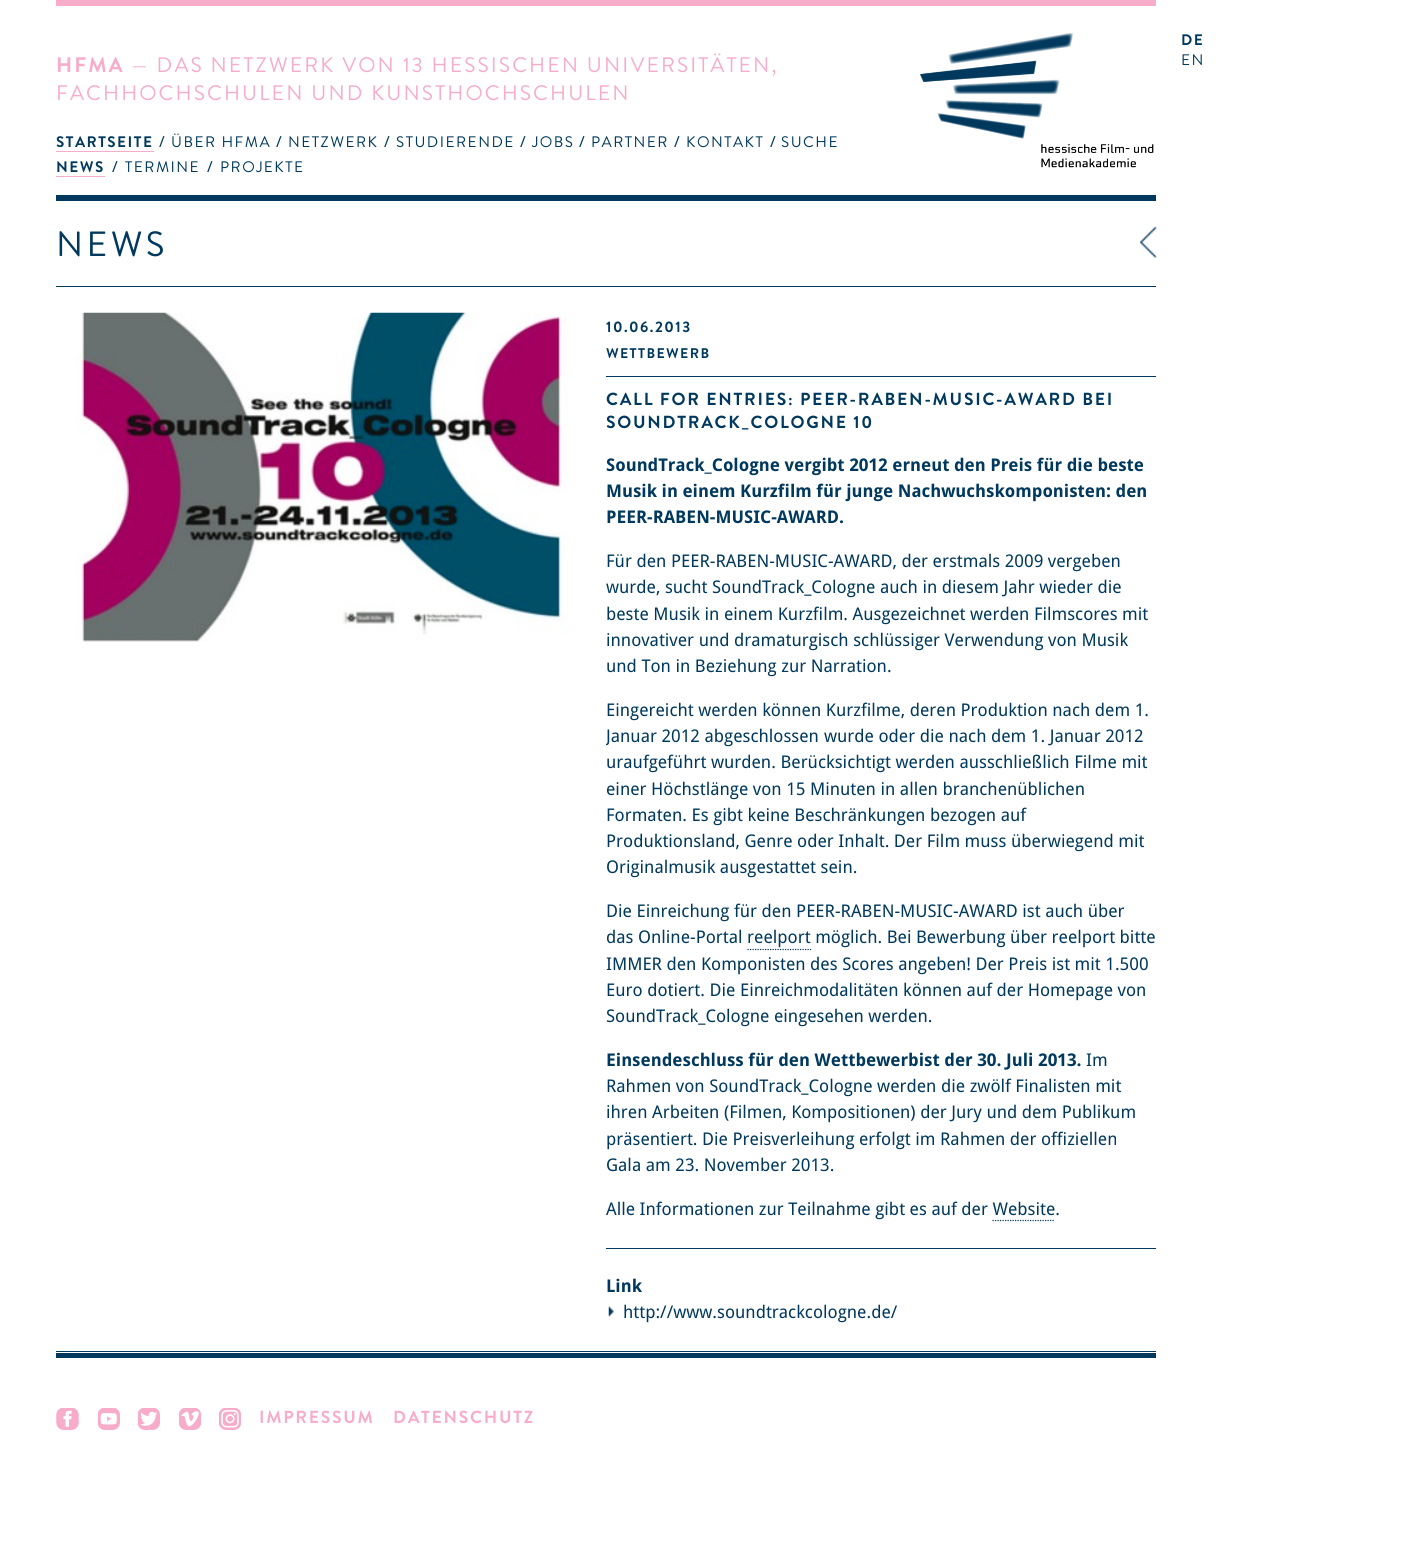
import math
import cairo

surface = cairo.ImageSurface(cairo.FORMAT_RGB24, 1415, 1564)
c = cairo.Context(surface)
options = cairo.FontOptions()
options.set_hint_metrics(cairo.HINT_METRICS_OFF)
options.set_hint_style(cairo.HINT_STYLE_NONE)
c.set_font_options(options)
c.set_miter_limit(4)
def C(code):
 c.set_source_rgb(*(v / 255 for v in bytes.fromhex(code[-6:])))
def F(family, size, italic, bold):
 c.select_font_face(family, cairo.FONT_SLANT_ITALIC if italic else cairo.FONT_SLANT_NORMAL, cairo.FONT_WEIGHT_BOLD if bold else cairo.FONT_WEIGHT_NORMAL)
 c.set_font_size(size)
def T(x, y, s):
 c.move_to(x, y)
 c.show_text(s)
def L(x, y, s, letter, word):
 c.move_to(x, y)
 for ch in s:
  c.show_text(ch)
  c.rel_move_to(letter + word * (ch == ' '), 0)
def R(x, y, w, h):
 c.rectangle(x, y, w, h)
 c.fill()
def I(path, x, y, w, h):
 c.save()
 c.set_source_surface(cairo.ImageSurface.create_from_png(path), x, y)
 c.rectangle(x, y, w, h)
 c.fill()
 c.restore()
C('ffffff')
c.paint()
C('f7acc9')
R(56,0,1100,6)
C('00395d')
R(56,195,1100,6)
F('Brandon Grotesque',21,0,0)
C('f7acc9')
L(56,72,'HFMA',2.1,0)
F('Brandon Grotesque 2',21,0,0)
L(131,72,'— DAS NETZWERK VON 13 HESSISCHEN UNIVERSITÄTEN,',2.1,0)
L(56,100,'FACHHOCHSCHULEN UND KUNSTHOCHSCHULEN',2.1,0)
I('1.png',920,33,234,135)
F('Droid Sans',15.25,0,0)
C('00395d')
T(159,147,'/')
F('Brandon Grotesque 2',15.25,0,0)
L(171,147,'ÜBER HFMA',1.5,0)
F('Brandon Grotesque',15.25,0,0)
L(56,147,'STARTSEITE',1.5,0)
C('f7acc9')
R(56,151,98,1)
C('00395d')
L(56,172,'NEWS',1.5,0)
C('f7acc9')
R(56,176,49,1)
F('Droid Sans',15.25,0,0)
C('00395d')
T(112,172,'/')
F('Brandon Grotesque 2',15.25,0,0)
L(125,172,'TERMINE',1.5,0)
F('Droid Sans',15.25,0,0)
T(207,172,'/')
F('Brandon Grotesque 2',15.25,0,0)
L(220,172,'PROJEKTE',1.5,0)
F('Droid Sans',15.25,0,0)
T(276,147,'/')
F('Brandon Grotesque 2',15.25,0,0)
L(288,147,'NETZWERK',1.5,0)
F('Droid Sans',15.25,0,0)
T(384,147,'/')
F('Brandon Grotesque 2',15.25,0,0)
L(396,147,'STUDIERENDE',1.5,0)
F('Droid Sans',15.25,0,0)
T(520,147,'/')
F('Brandon Grotesque 2',15.25,0,0)
L(532,147,'JOBS',1.5,0)
F('Droid Sans',15.25,0,0)
T(579,147,'/')
F('Brandon Grotesque 2',15.25,0,0)
L(591,147,'PARTNER',1.5,0)
F('Droid Sans',15.25,0,0)
T(674,147,'/')
F('Brandon Grotesque 2',15.25,0,0)
L(686,147,'KONTAKT',1.5,0)
F('Droid Sans',15.25,0,0)
T(770,147,'/')
F('Brandon Grotesque 2',15.25,0,0)
L(781,147,'SUCHE',1.5,0)
F('Brandon Grotesque',15.25,0,0)
L(1181,45,'DE',1.5,0)
F('Brandon Grotesque 2',15.25,0,0)
L(1181,65,'EN',1.5,0)
R(56,1353,1100,5)
R(56,286,1100,1)
F('Brandon Grotesque 2',35,0,0)
L(56,256,'NEWS',3.5,0)
I('2.png',1140,226,17,32)
R(56,1351,1100,1)
I('3.png',76,312,493,330)
R(606,376,550,1)
F('Brandon Grotesque',15.25,0,0)
L(606,332,'10.06.2013',1.5,0)
F('Brandon Grotesque',14,0,0)
L(606,358,'WETTBEWERB',1.4,0)
F('Brandon Grotesque',17.5,0,0)
L(606,405,'CALL FOR ENTRIES: PEER-RABEN-MUSIC-AWARD BEI',1.75,0)
L(606,428,'SOUNDTRACK_COLOGNE 10',1.75,0)
F('Droid Sans',17.5,0,1)
T(606,471,'SoundTrack_Cologne vergibt 2012 erneut den Preis für die beste')
T(606,497,'Musik in einem Kurzfilm für junge Nachwuchskomponisten: den')
T(606,523,'PEER-RABEN-MUSIC-AWARD.')
F('Droid Sans',17.5,0,0)
T(606,567,'Für den PEER-RABEN-MUSIC-AWARD, der erstmals 2009 vergeben')
T(606,593,'wurde, sucht SoundTrack_Cologne auch in diesem Jahr wieder die')
T(606,620,'beste Musik in einem Kurzfilm. Ausgezeichnet werden Filmscores mit')
T(606,646,'innovativer und dramaturgisch schlüssiger Verwendung von Musik')
T(606,672,'und Ton in Beziehung zur Narration.')
T(606,716,'Eingereicht werden können Kurzfilme, deren Produktion nach dem 1.')
c.save()
c.rectangle(606,698,550,183)
c.clip()
T(606,742,'Januar 2012 abgeschlossen')
c.restore()
T(824,742,'wurde oder die nach dem 1. Januar 2012')
T(606,768,'uraufgeführt wurden. Berücksichtigt werden ausschließlich Filme mit')
T(606,795,'einer Höchstlänge von 15 Minuten in allen branchenüblichen')
T(606,821,'Formaten. Es gibt keine Beschränkungen bezogen auf')
T(606,847,'Produktionsland, Genre oder Inhalt. Der Film muss überwiegend mit')
T(606,873,'Originalmusik ausgestattet sein.')
T(606,917,'Die Einreichung für den PEER-RABEN-MUSIC-AWARD ist auch über')
T(606,943,'das Online-Portal reelport möglich. Bei Bewerbung über reelport bitte')
c.new_path()
c.move_to(747.5,949.5)
c.line_to(811,949.5)
c.set_line_width(1.2)
c.set_dash([1.25,1.25])
c.stroke()
T(606,970,'IMMER den Komponisten des Scores angeben! Der Preis ist mit 1.500')
T(606,996,'Euro dotiert. Die Einreichmodalitäten können auf der Homepage von')
T(606,1022,'SoundTrack_Cologne eingesehen werden.')
F('Droid Sans',17.5,0,1)
T(606,1066,'Einsendeschluss für den Wettbewerbist der 30. Juli 2013.')
F('Droid Sans',17.5,0,0)
T(1086,1066,'Im')
T(606,1092,'Rahmen von SoundTrack_Cologne werden die zwölf Finalisten mit')
T(606,1118,'ihren Arbeiten (Filmen, Kompositionen) der Jury und dem Publikum')
T(606,1145,'präsentiert. Die Preisverleihung erfolgt im Rahmen der offiziellen')
T(606,1171,'Gala am 23. November 2013.')
T(606,1215,'Alle Informationen zur Teilnahme gibt es auf der Website.')
c.new_path()
c.move_to(992.5,1220.5)
c.line_to(1055,1220.5)
c.stroke()
R(606,1248,550,1)
F('Droid Sans',17.5,0,1)
T(606,1292,'Link')
I('4.png',608,1306,6,11)
F('Droid Sans',17.5,0,0)
T(623,1318,'http://www.soundtrackcologne.de/')
I('5.png',56,1408,23,22)
I('6.png',98,1408,22,22)
I('7.png',138,1408,22,22)
I('8.png',179,1408,22,22)
I('9.png',219,1408,22,22)
F('Brandon Grotesque',17.5,0,0)
C('f7acc9')
L(259,1423,'IMPRESSUM',1.75,0)
L(393,1423,'DATENSCHUTZ',1.75,0)
surface.write_to_png('o.png')
